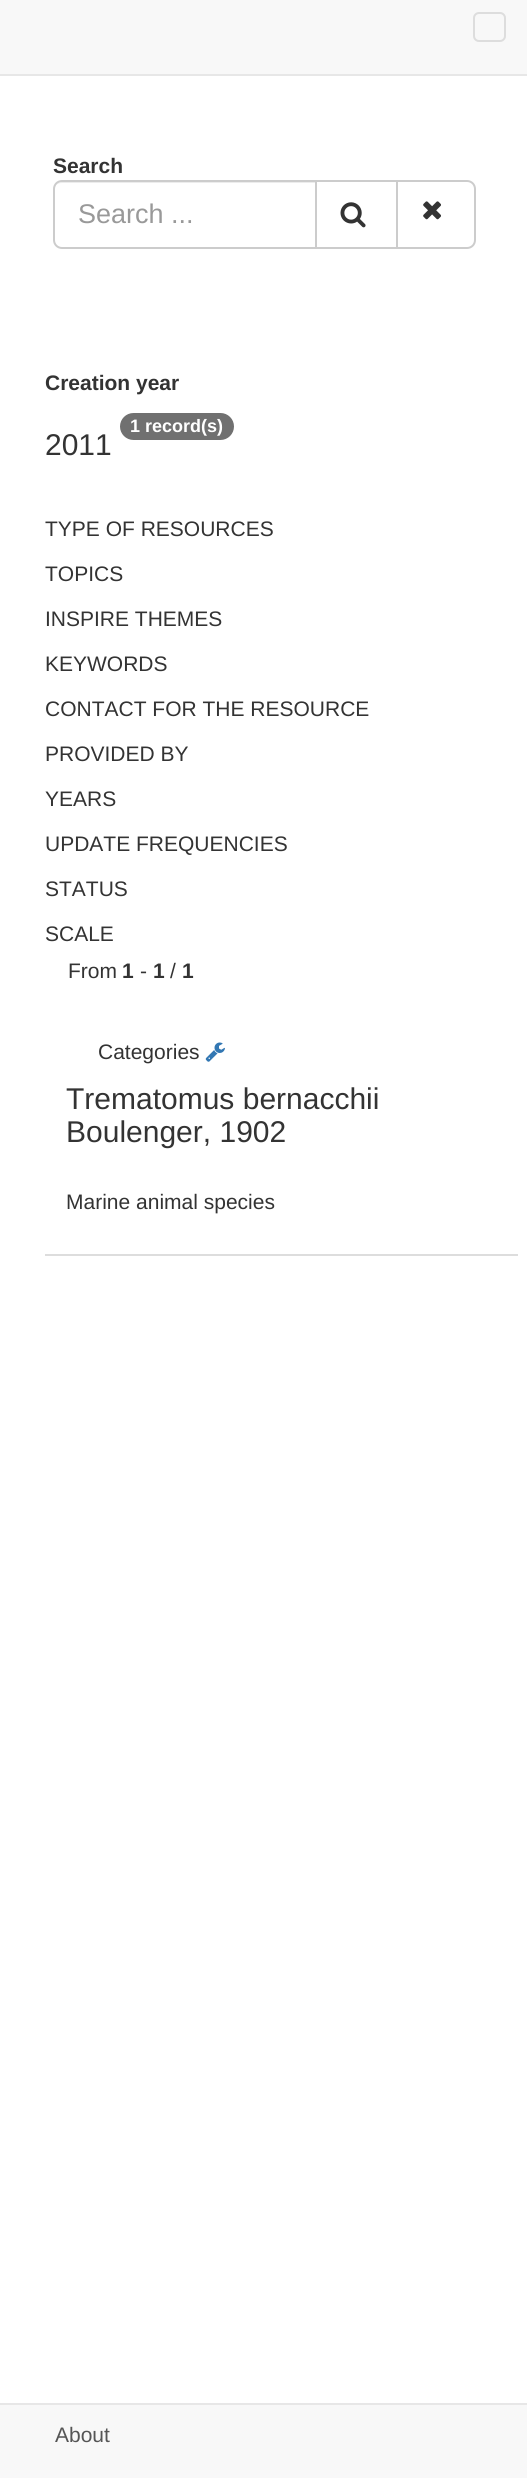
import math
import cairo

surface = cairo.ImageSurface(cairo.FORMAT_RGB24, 527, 2478)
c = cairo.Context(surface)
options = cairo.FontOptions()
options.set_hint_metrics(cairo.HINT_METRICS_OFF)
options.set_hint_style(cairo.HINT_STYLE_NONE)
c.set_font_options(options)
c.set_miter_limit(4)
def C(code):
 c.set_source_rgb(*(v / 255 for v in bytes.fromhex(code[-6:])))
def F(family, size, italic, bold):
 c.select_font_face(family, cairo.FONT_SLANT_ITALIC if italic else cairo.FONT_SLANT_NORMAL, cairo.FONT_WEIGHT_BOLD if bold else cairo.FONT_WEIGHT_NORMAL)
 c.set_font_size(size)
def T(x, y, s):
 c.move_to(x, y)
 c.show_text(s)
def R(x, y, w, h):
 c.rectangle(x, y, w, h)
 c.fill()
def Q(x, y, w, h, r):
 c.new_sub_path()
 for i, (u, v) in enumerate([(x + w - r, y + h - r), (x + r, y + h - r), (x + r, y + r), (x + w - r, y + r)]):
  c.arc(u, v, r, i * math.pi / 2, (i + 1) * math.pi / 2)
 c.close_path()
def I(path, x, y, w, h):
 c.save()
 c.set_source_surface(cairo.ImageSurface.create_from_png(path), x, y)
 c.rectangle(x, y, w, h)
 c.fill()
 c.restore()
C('ffffff')
c.paint()
C('f8f8f8')
R(0,0,527,74)
C('e7e7e7')
R(0,74,527,2)
Q(474,13,31,28,5)
C('dddddd')
c.stroke()
F('Liberation Sans',21,0,1)
C('333333')
T(53,173,'Search')
C('ececec')
c.new_path()
c.move_to(62,183)
c.line_to(315,183)
c.line_to(315,182)
c.line_to(62,182)
c.curve_to(58,182,54,186,54,190)
c.curve_to(54,186,57,183,62,183)
c.close_path()
c.fill()
c.new_path()
c.move_to(62,181)
c.line_to(316,181)
c.line_to(316,248)
c.line_to(62,248)
c.curve_to(57.5,248,54,244.5,54,240)
c.line_to(54,189)
c.curve_to(54,184.5,57.5,181,62,181)
c.close_path()
C('cccccc')
c.stroke()
F('Liberation Sans',27,0,0)
C('999999')
T(78,223,'Search ...')
c.rectangle(316,181,81,67)
C('cccccc')
c.stroke()
I('1.png',340,202,26,26)
C('ffffff')
c.new_path()
c.move_to(397,181)
c.line_to(467,181)
c.curve_to(471.5,181,475,184.5,475,189)
c.line_to(475,240)
c.curve_to(475,244.5,471.5,248,467,248)
c.line_to(397,248)
c.close_path()
c.fill_preserve()
C('cccccc')
c.stroke()
I('2.png',423,201,18,19)
F('Liberation Sans',21,0,1)
C('333333')
T(45,390,'Creation year')
C('707070')
Q(120,413,114,27,13.5)
c.fill()
F('Liberation Sans',18,0,1)
C('ffffff')
T(130,432,'1 record(s)')
F('Liberation Sans',30,0,0)
C('333333')
T(45,455,'2011')
F('Liberation Sans',21,0,0)
T(45,536,'TYPE OF RESOURCES')
T(45,581,'TOPICS')
T(45,626,'INSPIRE THEMES')
T(45,671,'KEYWORDS')
T(45,716,'CONTACT FOR THE RESOURCE')
T(45,761,'PROVIDED BY')
T(45,806,'YEARS')
T(45,851,'UPDATE FREQUENCIES')
T(45,896,'STATUS')
T(45,941,'SCALE')
T(68,978,'From')
F('Liberation Sans',21,0,1)
T(122,978,'1')
F('Liberation Sans',21,0,0)
T(140,978,'-')
F('Liberation Sans',21,0,1)
T(153,978,'1')
F('Liberation Sans',21,0,0)
T(170,978,'/')
F('Liberation Sans',21,0,1)
T(182,978,'1')
C('dddddd')
R(45,1254,473,2)
F('Liberation Sans',21,0,0)
C('333333')
T(98,1059,'Categories')
I('3.png',205,1042,20,20)
F('Liberation Sans',30,0,0)
T(66,1109,'Trematomus bernacchii')
T(66,1142,'Boulenger, 1902')
F('Liberation Sans',21,0,0)
T(66,1209,'Marine animal species')
C('f8f8f8')
R(0,2405,527,73)
C('e7e7e7')
R(0,2403,527,2)
C('555555')
T(55,2442,'About')
surface.write_to_png('o.png')
